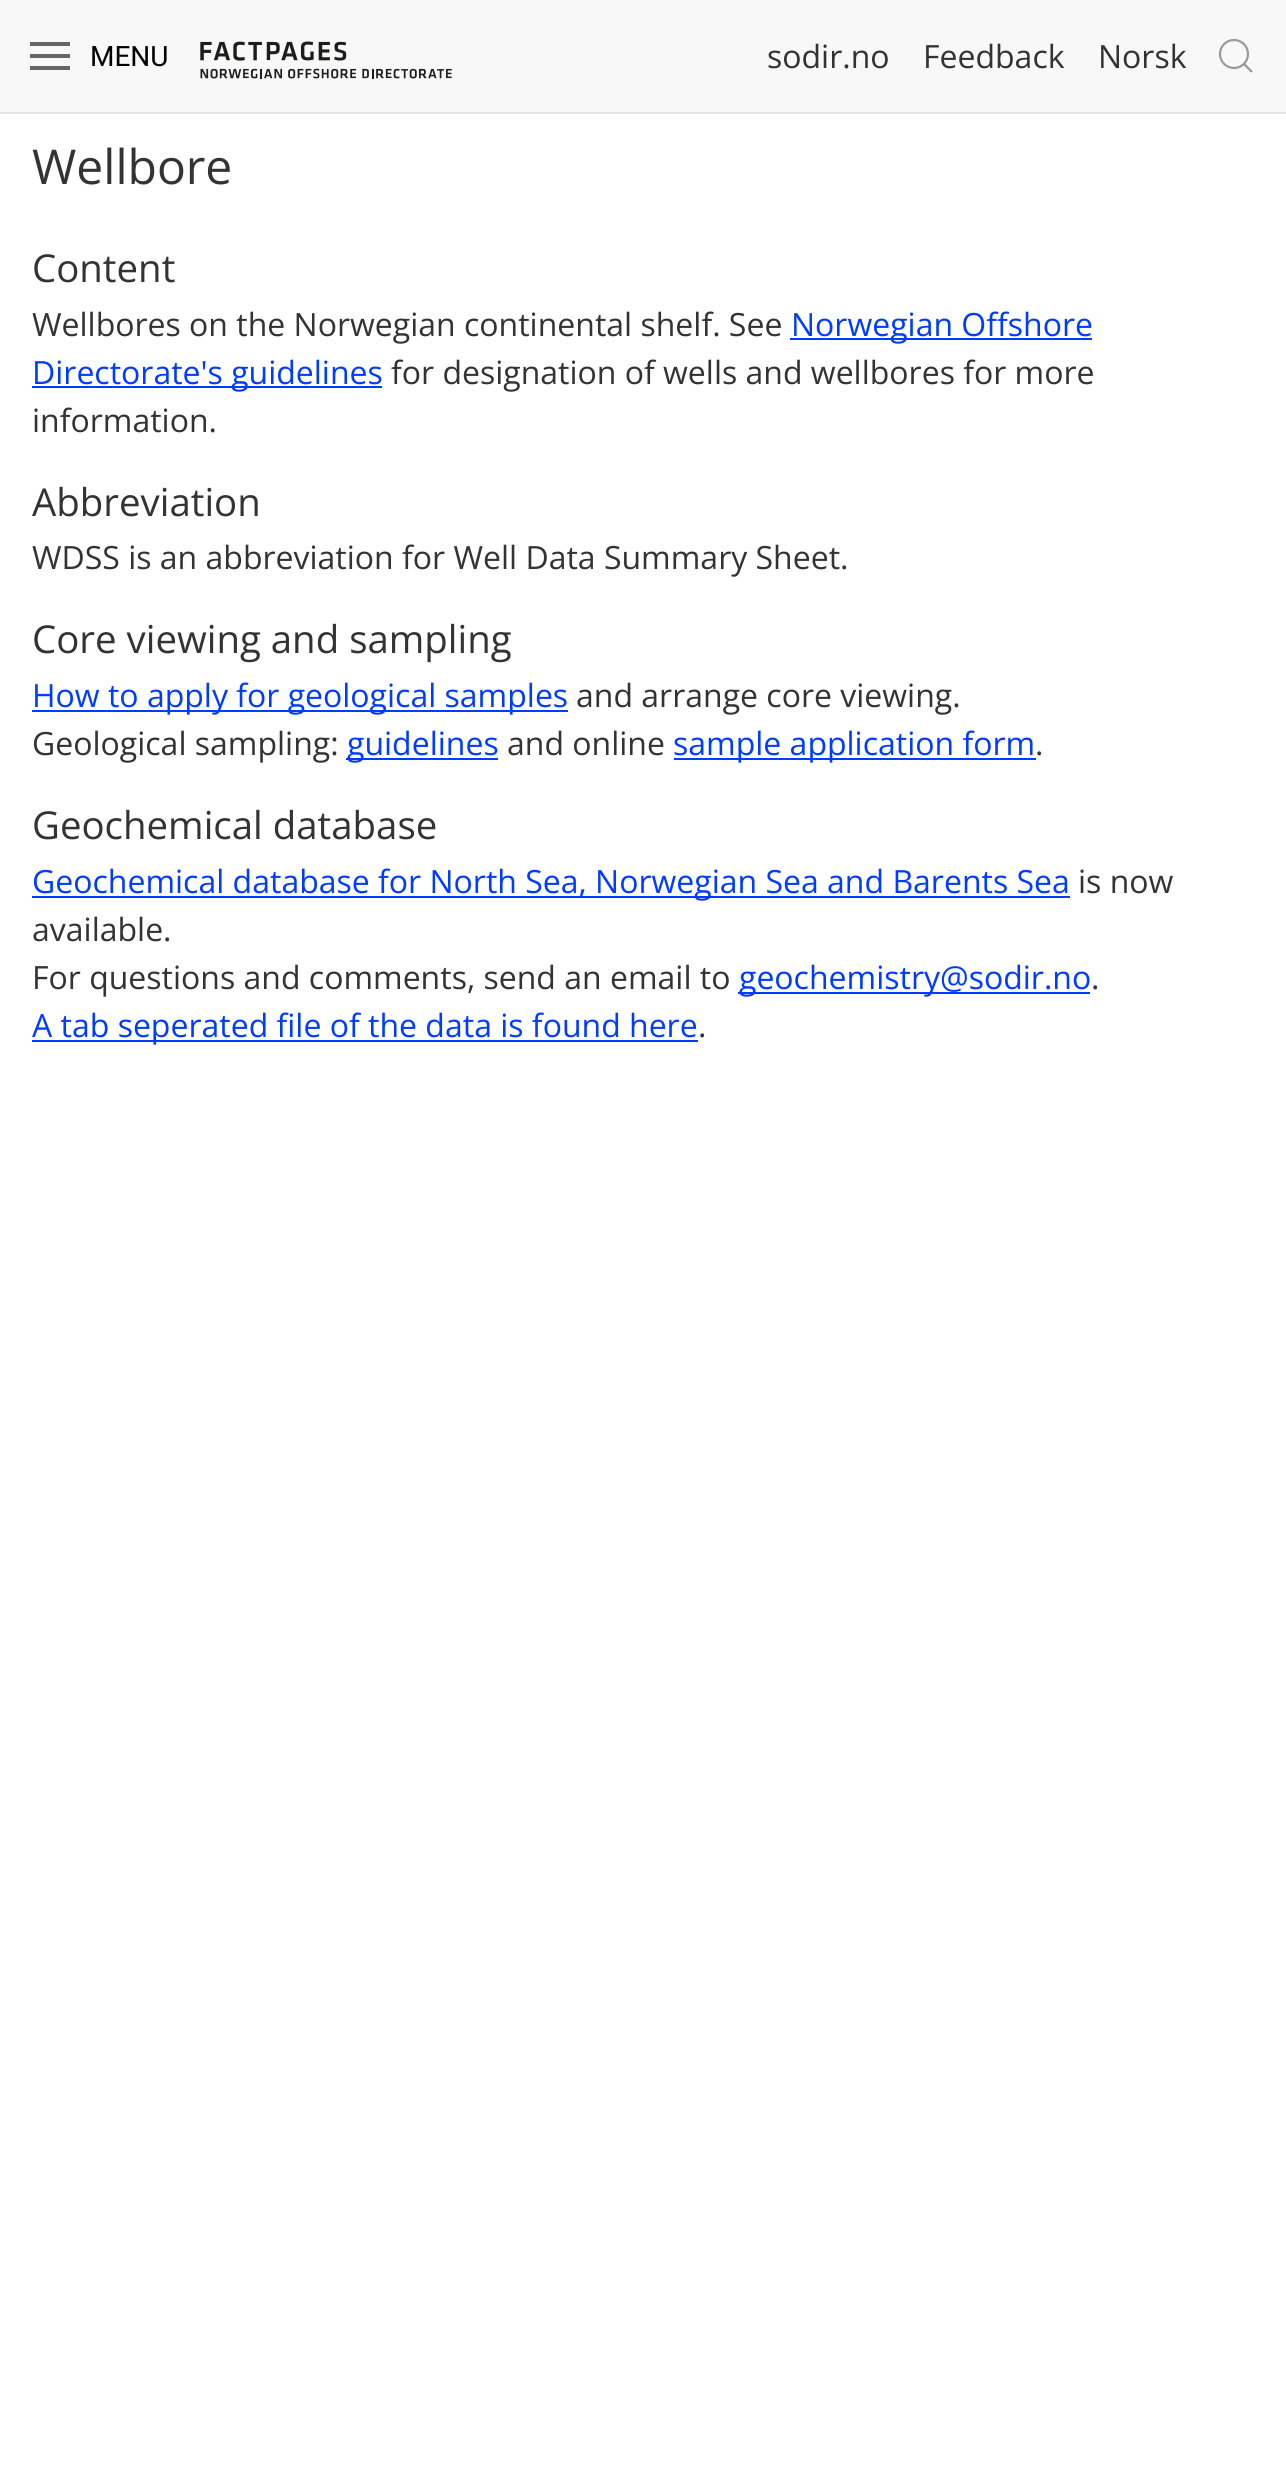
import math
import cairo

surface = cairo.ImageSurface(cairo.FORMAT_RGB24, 1286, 2465)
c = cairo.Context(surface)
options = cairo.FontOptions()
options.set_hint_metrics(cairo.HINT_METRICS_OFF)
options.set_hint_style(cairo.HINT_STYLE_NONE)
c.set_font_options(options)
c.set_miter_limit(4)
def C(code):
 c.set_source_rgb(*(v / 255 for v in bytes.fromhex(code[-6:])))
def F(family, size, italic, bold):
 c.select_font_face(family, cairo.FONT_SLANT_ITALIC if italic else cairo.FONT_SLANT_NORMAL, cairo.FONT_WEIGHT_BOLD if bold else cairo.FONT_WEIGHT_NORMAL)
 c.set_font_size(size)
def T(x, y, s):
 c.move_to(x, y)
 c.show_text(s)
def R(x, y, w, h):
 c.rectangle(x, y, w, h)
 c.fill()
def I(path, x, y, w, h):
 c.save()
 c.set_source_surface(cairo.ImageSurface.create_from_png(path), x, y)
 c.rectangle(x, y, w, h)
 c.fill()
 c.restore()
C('ffffff')
c.paint()
C('e5e5e5')
R(0,112,1286,2)
C('f8f8f8')
R(0,0,1286,112)
C('666666')
R(30,42,40,4)
R(30,54,40,4)
R(30,66,40,4)
F('Roboto',28,0,0)
C('000000')
T(90,66,'MENU')
I('1.png',200,41,252,38)
F('Open Sans',32,0,0)
C('333333')
T(767,68,'sodir.no')
T(923,68,'Feedback')
T(1098,68,'Norsk')
c.new_path()
c.arc(1234,54,14,0,2 * math.pi)
C('999999')
c.set_line_width(2.2)
c.stroke()
c.new_path()
c.move_to(1244,64)
c.line_to(1252,72)
c.close_path()
c.stroke()
F('Open Sans',48,0,0)
C('333333')
T(32,184,'Wellbore')
F('Open Sans',38.4,0,0)
T(32,282,'Content')
F('Open Sans',32,0,0)
T(32,336,'Wellbores on the Norwegian continental shelf. See')
C('003cff')
R(790,338,302,2)
T(791,336,'Norwegian Offshore')
R(32,386,350,2)
T(32,384,'Directorate\'s guidelines')
C('333333')
T(391,384,'for designation of wells and wellbores for more')
T(32,432,'information.')
F('Open Sans',38.4,0,0)
T(32,516,'Abbreviation')
F('Open Sans',32,0,0)
T(32,569,'WDSS is an abbreviation for Well Data Summary Sheet.')
F('Open Sans',38.4,0,0)
T(32,653,'Core viewing and sampling')
C('003cff')
R(32,710,536,2)
F('Open Sans',32,0,0)
T(32,707,'How to apply for geological samples')
C('333333')
T(576,707,'and arrange core viewing.')
T(32,755,'Geological sampling:')
C('003cff')
R(346,758,152,2)
T(347,755,'guidelines')
C('333333')
T(507,755,'and online')
C('003cff')
R(674,758,362,2)
T(673,755,'sample application form')
C('333333')
T(1035,755,'.')
F('Open Sans',38.4,0,0)
T(32,839,'Geochemical database')
C('003cff')
R(32,896,1038,2)
F('Open Sans',32,0,0)
T(32,893,'Geochemical database for North Sea, Norwegian Sea and Barents Sea')
C('333333')
T(1078,893,'is now')
T(32,941,'available.')
T(32,989,'For questions and comments, send an email to')
C('003cff')
R(738,992,352,2)
T(739,989,'geochemistry@sodir.no')
C('333333')
T(1091,989,'.')
C('003cff')
R(32,1040,666,2)
T(32,1037,'A tab seperated file of the data is found here')
C('333333')
T(698,1037,'.')
surface.write_to_png('o.png')
